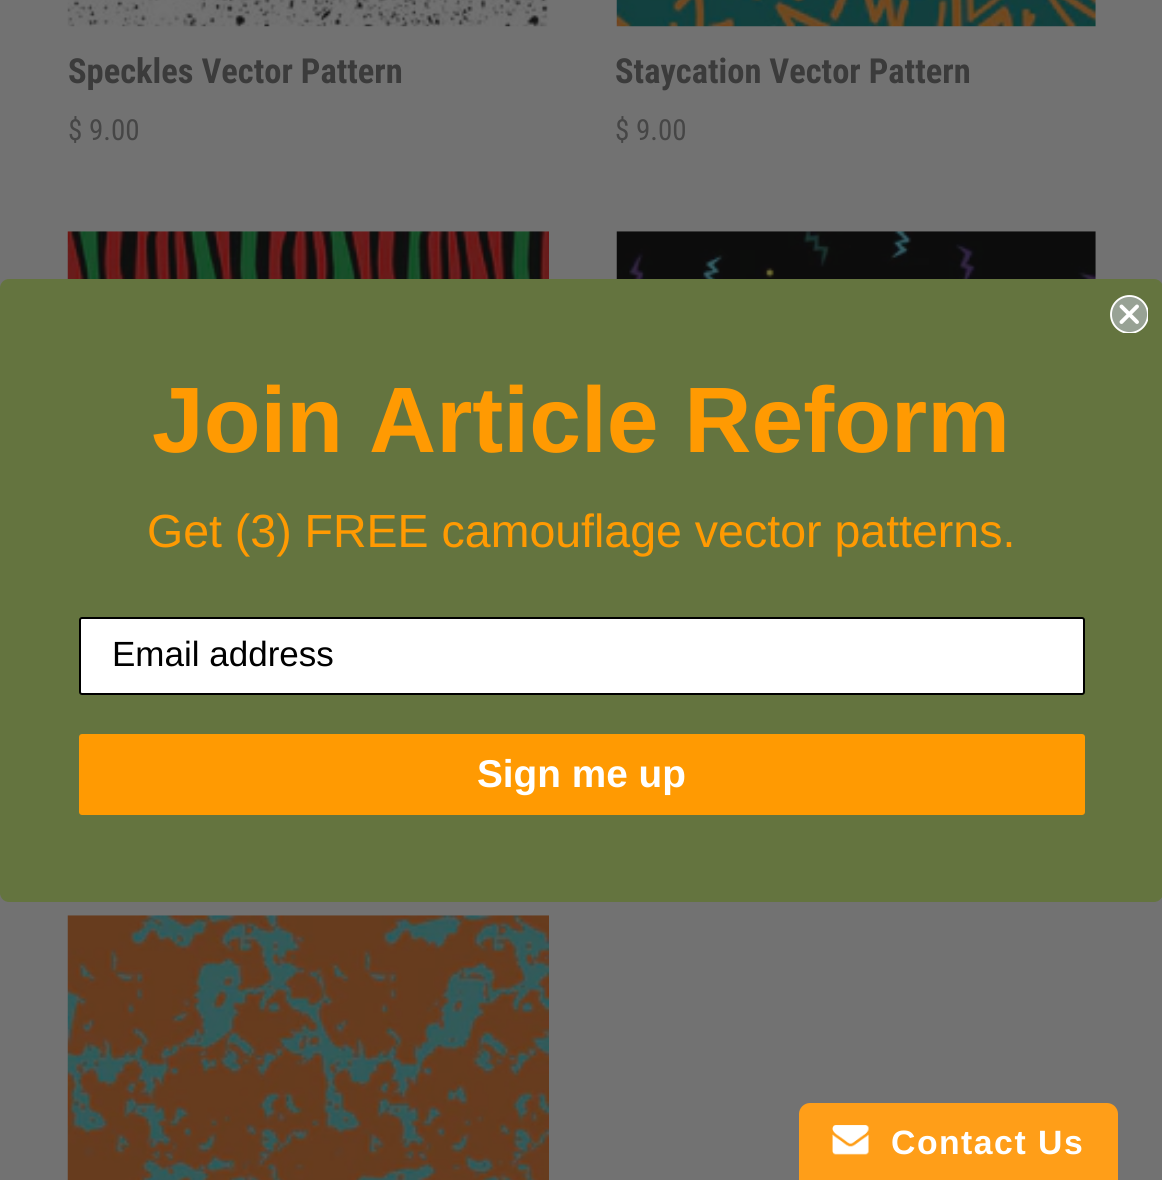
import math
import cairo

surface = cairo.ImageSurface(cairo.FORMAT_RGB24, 1162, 1180)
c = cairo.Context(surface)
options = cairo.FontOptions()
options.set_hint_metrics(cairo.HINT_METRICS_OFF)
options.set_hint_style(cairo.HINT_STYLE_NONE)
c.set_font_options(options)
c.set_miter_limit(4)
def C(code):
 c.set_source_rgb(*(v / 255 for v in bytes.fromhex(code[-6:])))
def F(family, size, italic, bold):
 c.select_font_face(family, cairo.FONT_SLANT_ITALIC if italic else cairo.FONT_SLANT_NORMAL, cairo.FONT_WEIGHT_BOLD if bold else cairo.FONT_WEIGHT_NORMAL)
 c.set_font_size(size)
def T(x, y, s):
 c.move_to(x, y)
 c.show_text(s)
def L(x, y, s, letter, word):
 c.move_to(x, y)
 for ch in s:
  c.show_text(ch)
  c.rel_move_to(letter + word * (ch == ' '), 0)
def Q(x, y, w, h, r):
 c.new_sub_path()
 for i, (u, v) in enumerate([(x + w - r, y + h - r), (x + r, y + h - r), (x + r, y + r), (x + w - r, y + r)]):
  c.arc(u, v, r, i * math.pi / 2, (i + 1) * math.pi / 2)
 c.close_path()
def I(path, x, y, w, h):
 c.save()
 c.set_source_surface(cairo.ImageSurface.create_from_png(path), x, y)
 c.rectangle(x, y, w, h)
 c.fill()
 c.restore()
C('727272')
c.paint()
I('1.png',67,0,482,27)
F('Roboto Condensed',34.5,0,1)
C('3b3b3b')
T(68,83,'Speckles Vector Pattern')
F('Roboto Condensed',29,0,0)
C('464646')
T(68,140,'$ 9.00')
I('2.png',616,0,480,27)
F('Roboto Condensed',34.5,0,1)
C('3b3b3b')
T(615,83,'Staycation Vector Pattern')
F('Roboto Condensed',29,0,0)
C('464646')
T(615,140,'$ 9.00')
I('3.png',67,231,482,48)
I('4.png',616,231,480,48)
I('5.png',67,915,482,265)
C('64743f')
Q(0,279,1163,623,9)
c.fill()
C('98a295')
c.arc(1129.5,314.5,18.5,0,2 * math.pi)
c.fill()
c.save()
c.rectangle(1109,295,39,38)
c.clip()
c.arc(1129.5,314.5,18.5,0,2 * math.pi)
C('ffffff')
c.set_line_width(1.9)
c.stroke()
c.restore()
c.new_path()
c.move_to(1121.5,306.5)
c.line_to(1137,322)
c.move_to(1121.5,322)
c.line_to(1137,306.5)
c.close_path()
C('ffffff')
c.set_line_width(3.9)
c.set_line_cap(cairo.LINE_CAP_ROUND)
c.set_line_join(cairo.LINE_JOIN_ROUND)
c.stroke()
F('Liberation Sans',93,0,1)
C('ff9a02')
T(152,452,'Join Article Reform')
F('Liberation Sans',46.5,0,0)
T(147,547,'Get (3) FREE camouflage vector patterns.')
C('ffffff')
Q(80,618,1004,76,2)
c.fill_preserve()
C('000000')
c.set_line_width(2)
c.set_line_cap(cairo.LINE_CAP_BUTT)
c.set_line_join(cairo.LINE_JOIN_MITER)
c.stroke()
F('Liberation Sans',35,0,0)
T(112,666,'Email address')
C('ff9a02')
Q(79,734,1006,81,3)
c.fill()
F('Liberation Sans',38.75,0,1)
C('ffffff')
T(477,787,'Sign me up')
C('ff9e18')
c.new_path()
c.move_to(810,1103)
c.line_to(1107,1103)
c.curve_to(1113,1103,1118,1108,1118,1114)
c.line_to(1118,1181)
c.line_to(799,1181)
c.line_to(799,1114)
c.curve_to(799,1108,804,1103,810,1103)
c.close_path()
c.fill()
I('6.png',832,1125,37,30)
F('Liberation Sans',33.75,0,1)
C('ffffff')
L(891,1154,'Contact Us',1.5,0)
surface.write_to_png('o.png')
